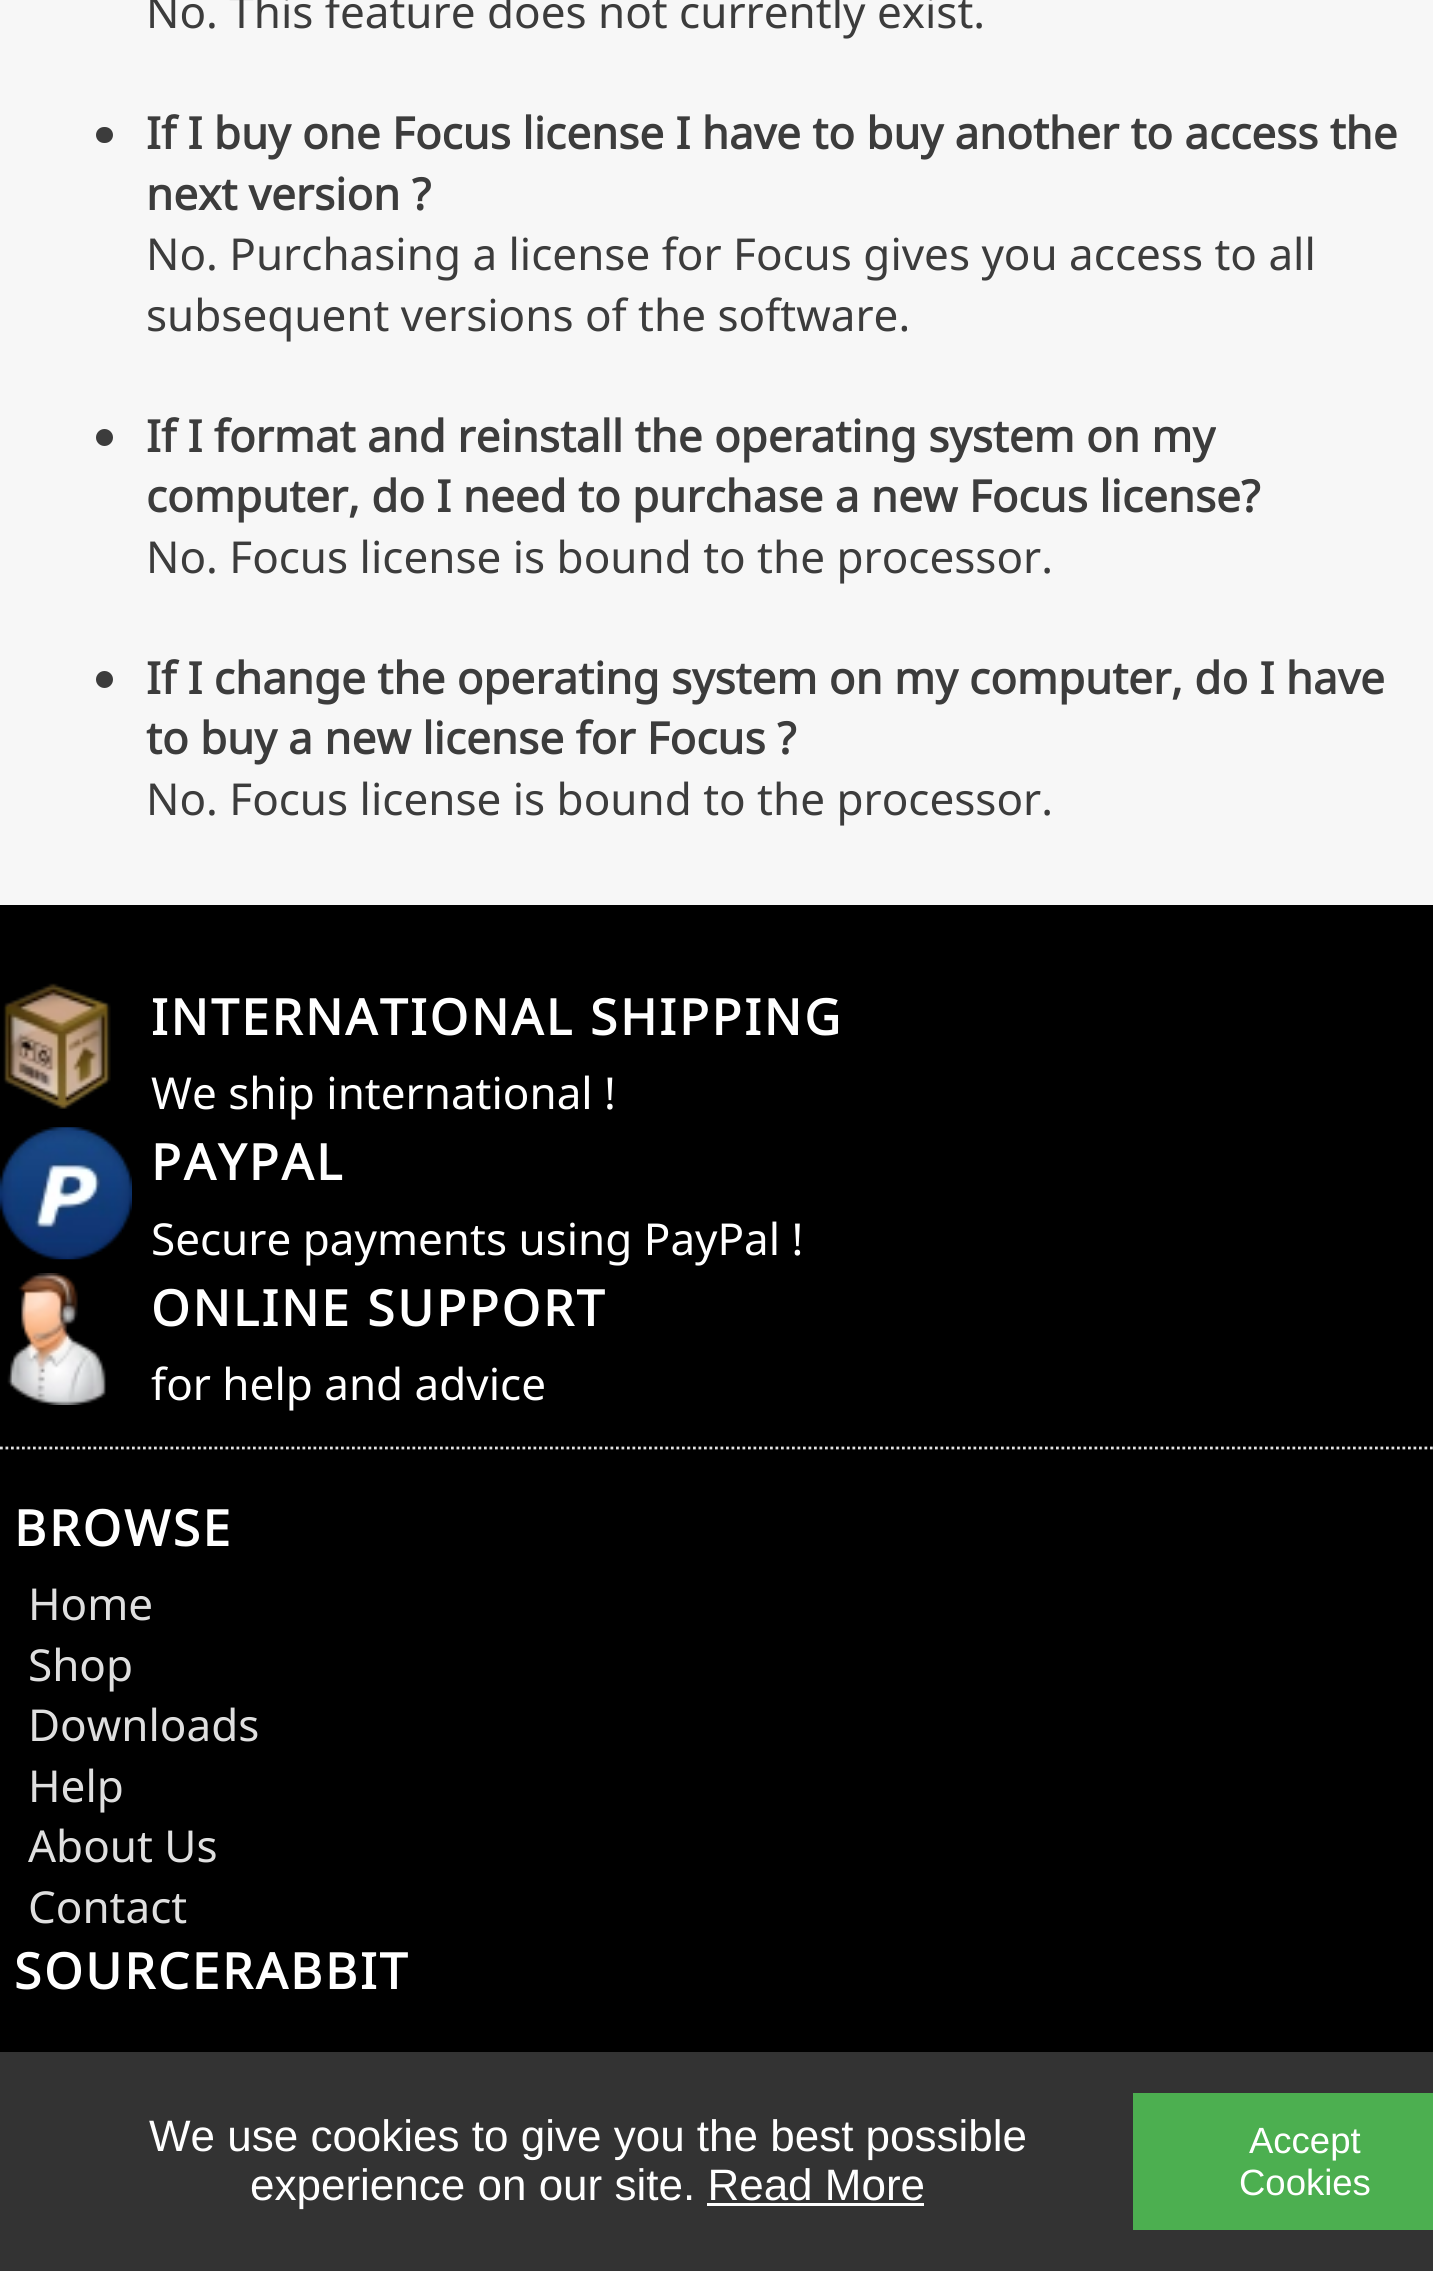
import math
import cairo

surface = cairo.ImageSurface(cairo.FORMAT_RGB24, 1433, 2271)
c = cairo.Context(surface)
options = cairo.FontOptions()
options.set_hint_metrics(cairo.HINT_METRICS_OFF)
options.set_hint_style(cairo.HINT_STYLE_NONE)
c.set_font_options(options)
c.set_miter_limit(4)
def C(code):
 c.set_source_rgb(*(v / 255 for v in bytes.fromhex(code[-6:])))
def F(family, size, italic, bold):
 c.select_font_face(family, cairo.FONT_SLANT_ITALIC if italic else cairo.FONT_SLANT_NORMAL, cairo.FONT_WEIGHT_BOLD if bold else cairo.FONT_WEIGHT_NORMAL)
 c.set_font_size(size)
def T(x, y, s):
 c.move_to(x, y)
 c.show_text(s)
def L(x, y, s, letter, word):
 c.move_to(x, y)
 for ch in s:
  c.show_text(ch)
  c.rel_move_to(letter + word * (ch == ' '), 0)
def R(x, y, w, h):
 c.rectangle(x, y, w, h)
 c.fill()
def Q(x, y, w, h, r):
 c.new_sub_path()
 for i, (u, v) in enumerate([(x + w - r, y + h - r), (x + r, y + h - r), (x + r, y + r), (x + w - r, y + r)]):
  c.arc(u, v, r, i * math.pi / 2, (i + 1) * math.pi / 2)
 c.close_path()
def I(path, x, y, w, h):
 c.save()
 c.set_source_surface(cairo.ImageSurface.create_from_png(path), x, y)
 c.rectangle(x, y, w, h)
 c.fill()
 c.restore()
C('f7f7f7')
c.paint()
F('Noto Sans',44,0,0)
C('3c3c3c')
T(146,28,'No. This feature does not currently exist.')
Q(96,127,17,16,8)
c.fill()
F('Noto Sans',44,0,1)
T(146,149,'If I buy one Focus license I have to buy another to access the')
T(146,210,'next version ?')
F('Noto Sans',44,0,0)
T(146,270,'No. Purchasing a license for Focus gives you access to all')
T(146,331,'subsequent versions of the software.')
c.new_path()
c.arc(104.5,437.5,8.5,0,2 * math.pi)
c.fill()
F('Noto Sans',44,0,1)
T(146,452,'If I format and reinstall the operating system on my')
T(146,512,'computer, do I need to purchase a new Focus license?')
F('Noto Sans',44,0,0)
T(146,573,'No. Focus license is bound to the processor.')
c.new_path()
c.arc(104.5,679.5,8.5,0,2 * math.pi)
c.fill()
F('Noto Sans',44,0,1)
T(146,694,'If I change the operating system on my computer, do I have')
T(146,754,'to buy a new license for Focus ?')
F('Noto Sans',44,0,0)
T(146,815,'No. Focus license is bound to the processor.')
C('000000')
R(0,905,1433,1147)
c.new_path()
c.move_to(0,1448)
c.line_to(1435.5,1448)
C('e2e2e2')
c.set_line_width(2.8)
c.set_dash([2.75,2.75])
c.stroke()
I('1.png',3,983,108,126)
F('Noto Sans',49.5,0,1)
C('ffffff')
L(151,1035,'INTERNATIONAL SHIPPING',2.75,0)
F('Noto Sans',44,0,0)
T(151,1109,'We ship international !')
I('2.png',0,1127,132,133)
F('Noto Sans',49.5,0,1)
L(151,1180,'PAYPAL',2.75,0)
F('Noto Sans',44,0,0)
T(151,1255,'Secure payments using PayPal !')
I('3.png',7,1273,99,132)
F('Noto Sans',49.5,0,1)
L(151,1326,'ONLINE SUPPORT',2.75,0)
F('Noto Sans',44,0,0)
T(151,1400,'for help and advice')
F('Noto Sans',49.5,0,1)
L(14,1546,'BROWSE',2.75,0)
F('Noto Sans',44,0,0)
C('dfdfdf')
T(28,1620,'Home')
T(28,1681,'Shop')
T(28,1741,'Downloads')
T(28,1802,'Help')
T(28,1862,'About Us')
T(28,1923,'Contact')
F('Noto Sans',49.5,0,1)
C('ffffff')
L(14,1989,'SOURCERABBIT',2.75,0)
C('333333')
R(0,2052,1433,219)
F('Liberation Sans',44,0,0)
C('ffffff')
T(149,2151,'We use cookies to give you the best possible')
T(250,2200,'experience on our site. Read More')
R(707,2203,217,3)
C('4caf50')
R(1133,2093,300,137)
F('Liberation Sans',36.5,0,0)
C('ffffff')
T(1249,2153,'Accept')
T(1239,2195,'Cookies')
surface.write_to_png('o.png')
